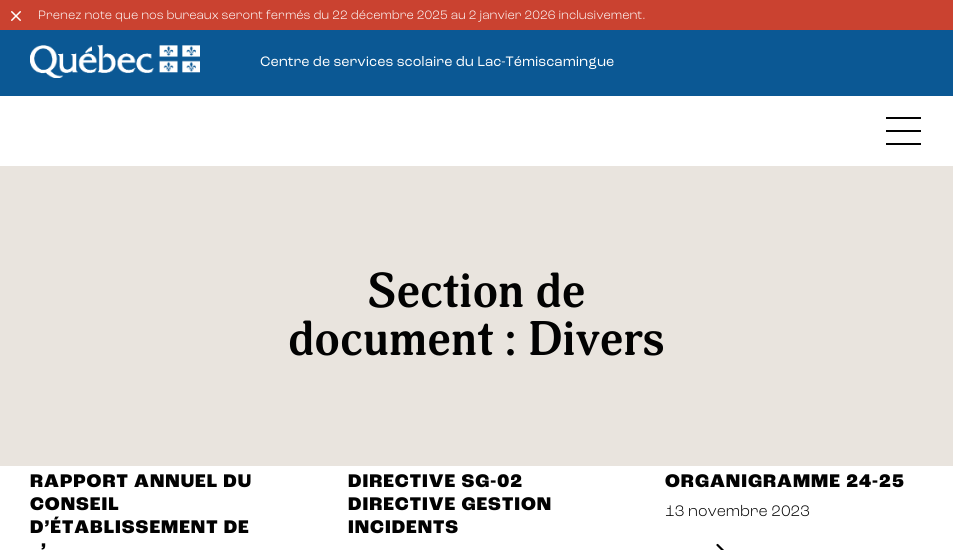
import math
import cairo

surface = cairo.ImageSurface(cairo.FORMAT_RGB24, 953, 550)
c = cairo.Context(surface)
options = cairo.FontOptions()
options.set_hint_metrics(cairo.HINT_METRICS_OFF)
options.set_hint_style(cairo.HINT_STYLE_NONE)
c.set_font_options(options)
c.set_miter_limit(4)
def C(code):
 c.set_source_rgb(*(v / 255 for v in bytes.fromhex(code[-6:])))
def F(family, size, italic, bold):
 c.select_font_face(family, cairo.FONT_SLANT_ITALIC if italic else cairo.FONT_SLANT_NORMAL, cairo.FONT_WEIGHT_BOLD if bold else cairo.FONT_WEIGHT_NORMAL)
 c.set_font_size(size)
def T(x, y, s):
 c.move_to(x, y)
 c.show_text(s)
def L(x, y, s, letter, word):
 c.move_to(x, y)
 for ch in s:
  c.show_text(ch)
  c.rel_move_to(letter + word * (ch == ' '), 0)
def R(x, y, w, h):
 c.rectangle(x, y, w, h)
 c.fill()
def I(path, x, y, w, h):
 c.save()
 c.set_source_surface(cairo.ImageSurface.create_from_png(path), x, y)
 c.rectangle(x, y, w, h)
 c.fill()
 c.restore()
C('ffffff')
c.paint()
C('ca4230')
R(0,0,953,30)
I('1.png',11,11,10,10)
F('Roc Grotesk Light',12.8,0,0)
C('ffffff')
T(38,19,'Prenez note que nos bureaux seront fermés du 22 décembre 2025 au 2 janvier 2026 inclusivement.')
C('0b5894')
R(0,30,953,66)
I('2.png',30,45,170,33)
F('Roc Grotesk',14.4,0,0)
C('ffffff')
T(260,66,'Centre de services scolaire du Lac-Témiscamingue')
C('020202')
R(886,117,35,2)
R(886,130,35,2)
R(886,143,35,2)
C('e9e4de')
R(0,166,953,300)
F('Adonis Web',48,0,1)
C('020202')
T(367,307,'Section de')
T(288,355,'document : Divers')
F('Roc Grotesk ExtraBold',19.25,0,0)
L(30,487,'RAPPORT ANNUEL DU',1,0)
L(30,510,'CONSEIL',1,0)
L(30,533,'D’ÉTABLISSEMENT DE',1,0)
L(41,556,'’',1,0)
L(348,487,'DIRECTIVE SG-02',1,0)
L(348,510,'DIRECTIVE GESTION',1,0)
L(348,533,'INCIDENTS',1,0)
L(665,487,'ORGANIGRAMME 24-25',1,0)
F('Roc Grotesk Light',16,0,0)
T(665,516,'13 novembre 2023')
c.new_path()
c.move_to(717.5,545)
c.line_to(724,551.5)
c.line_to(717.5,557.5)
c.set_line_width(2.2)
c.set_line_cap(cairo.LINE_CAP_ROUND)
c.set_line_join(cairo.LINE_JOIN_ROUND)
c.stroke()
surface.write_to_png('o.png')
